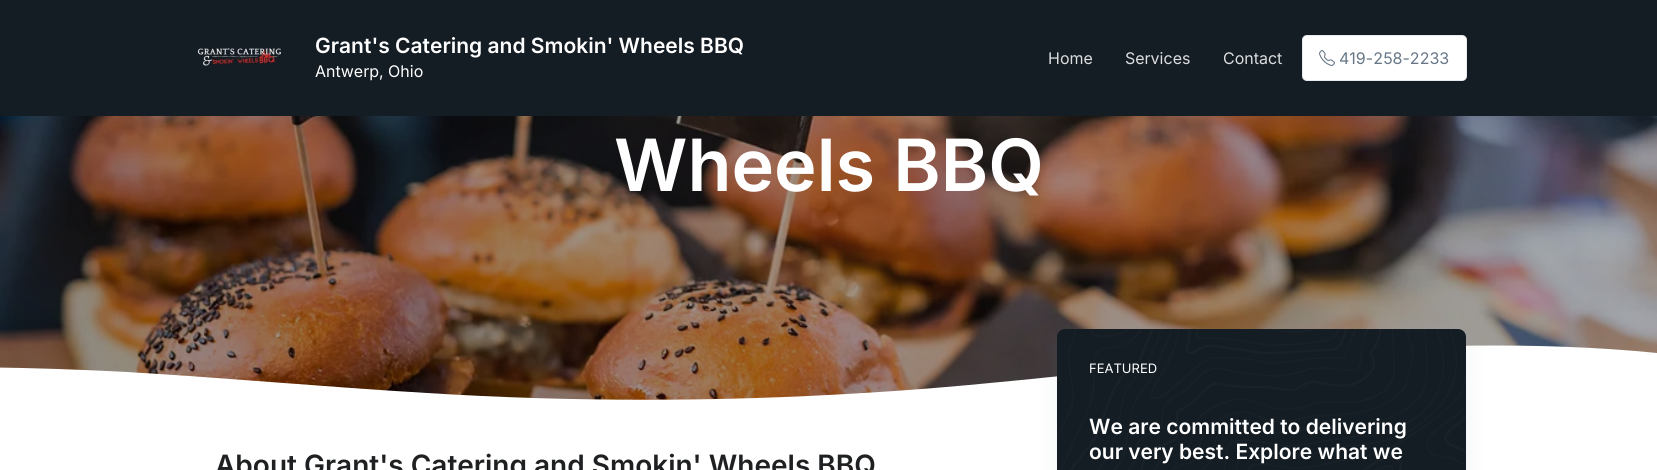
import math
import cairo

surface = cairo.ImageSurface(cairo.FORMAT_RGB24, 1657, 470)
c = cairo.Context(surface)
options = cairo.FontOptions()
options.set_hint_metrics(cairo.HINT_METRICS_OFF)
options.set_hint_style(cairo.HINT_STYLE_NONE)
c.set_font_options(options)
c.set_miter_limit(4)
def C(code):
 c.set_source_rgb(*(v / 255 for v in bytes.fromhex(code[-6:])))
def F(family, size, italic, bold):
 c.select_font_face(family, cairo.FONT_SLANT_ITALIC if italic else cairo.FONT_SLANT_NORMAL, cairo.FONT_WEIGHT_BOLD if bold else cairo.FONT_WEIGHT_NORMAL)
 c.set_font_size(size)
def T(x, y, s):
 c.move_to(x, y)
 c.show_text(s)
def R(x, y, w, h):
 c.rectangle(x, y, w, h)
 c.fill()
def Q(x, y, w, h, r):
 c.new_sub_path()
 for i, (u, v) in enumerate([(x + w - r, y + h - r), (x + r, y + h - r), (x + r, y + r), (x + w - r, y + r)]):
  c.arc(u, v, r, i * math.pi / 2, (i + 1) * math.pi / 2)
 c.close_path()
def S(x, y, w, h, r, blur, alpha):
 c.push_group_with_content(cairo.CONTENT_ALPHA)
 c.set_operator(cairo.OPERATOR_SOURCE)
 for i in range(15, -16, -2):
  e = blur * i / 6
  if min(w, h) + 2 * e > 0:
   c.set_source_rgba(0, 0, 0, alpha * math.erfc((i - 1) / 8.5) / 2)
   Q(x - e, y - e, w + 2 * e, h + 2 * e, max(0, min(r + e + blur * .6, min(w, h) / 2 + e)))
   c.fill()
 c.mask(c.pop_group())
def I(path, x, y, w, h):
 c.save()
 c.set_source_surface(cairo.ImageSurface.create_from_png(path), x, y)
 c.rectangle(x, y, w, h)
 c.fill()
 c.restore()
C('ffffff')
c.paint()
C('141c24')
R(0,0,1657,116)
I('1.png',197,48,86,18)
F('Inter SemiBold',21,0,0)
C('ffffff')
T(315,53,'Grant\'s Catering and Smokin\' Wheels BBQ')
F('Inter',16,0,0)
T(315,77,'Antwerp, Ohio')
C('dcddde')
T(1048,64,'Home')
T(1125,64,'Services')
T(1223,64,'Contact')
C('ffffff')
Q(1302,35,165,46,5)
c.fill()
Q(1302.5,35.5,164,45,4.5)
c.set_source_rgba(0.129,0.196,0.357,0.1)
c.set_line_width(1)
c.stroke()
I('2.png',1319,50,16,16)
C('677788')
T(1339,64,'419-258-2233')
I('3.png',0,116,1657,284)
F('Inter SemiBold',72,0,0)
C('ffffff')
T(614,191,'Wheels BBQ')
c.new_path()
c.move_to(127,372)
c.curve_to(228,378,326,387,427,393)
c.curve_to(570,402,720,402,863,393)
c.curve_to(1002,385,1146,365,1284,354)
c.curve_to(1406,345,1539,341,1657,353)
c.line_to(1657,401)
c.line_to(-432,401)
c.line_to(-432,387)
c.curve_to(-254,367,-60,362,127,372)
c.close_path()
c.fill()
F('Inter SemiBold',28,0,0)
C('1e2022')
T(215,475,'About Grant\'s Catering and Smokin\' Wheels BBQ')
C('8c98a4')
S(1057,335,409,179,8,12,.12)
C('141c24')
Q(1057,329,409,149,8)
c.fill()
I('4.png',1057,329,409,141)
F('Inter',13,0,0)
C('ffffff')
T(1089,373,'FEATURED')
F('Inter SemiBold',21,0,0)
T(1089,434,'We are committed to delivering')
T(1089,459,'our very best. Explore what we')
surface.write_to_png('o.png')
